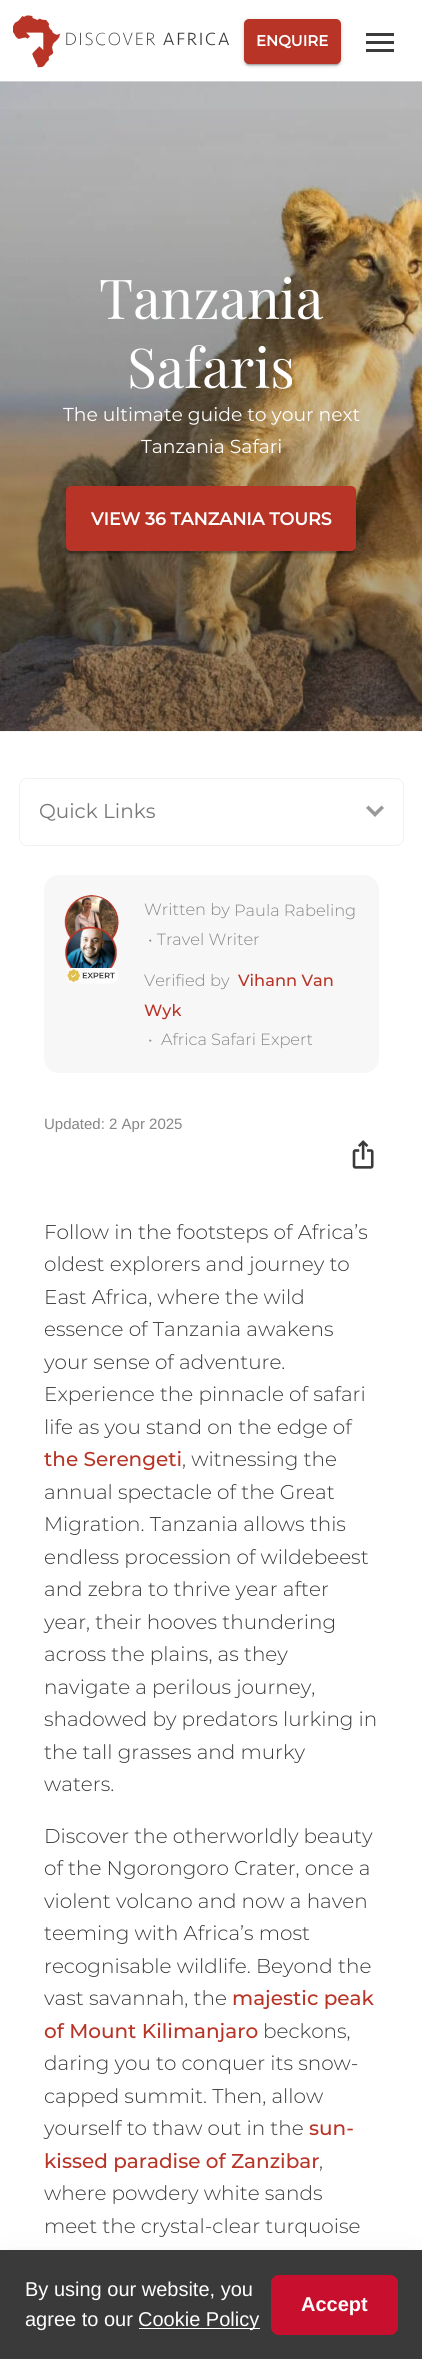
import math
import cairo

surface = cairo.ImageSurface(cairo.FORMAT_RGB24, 422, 2359)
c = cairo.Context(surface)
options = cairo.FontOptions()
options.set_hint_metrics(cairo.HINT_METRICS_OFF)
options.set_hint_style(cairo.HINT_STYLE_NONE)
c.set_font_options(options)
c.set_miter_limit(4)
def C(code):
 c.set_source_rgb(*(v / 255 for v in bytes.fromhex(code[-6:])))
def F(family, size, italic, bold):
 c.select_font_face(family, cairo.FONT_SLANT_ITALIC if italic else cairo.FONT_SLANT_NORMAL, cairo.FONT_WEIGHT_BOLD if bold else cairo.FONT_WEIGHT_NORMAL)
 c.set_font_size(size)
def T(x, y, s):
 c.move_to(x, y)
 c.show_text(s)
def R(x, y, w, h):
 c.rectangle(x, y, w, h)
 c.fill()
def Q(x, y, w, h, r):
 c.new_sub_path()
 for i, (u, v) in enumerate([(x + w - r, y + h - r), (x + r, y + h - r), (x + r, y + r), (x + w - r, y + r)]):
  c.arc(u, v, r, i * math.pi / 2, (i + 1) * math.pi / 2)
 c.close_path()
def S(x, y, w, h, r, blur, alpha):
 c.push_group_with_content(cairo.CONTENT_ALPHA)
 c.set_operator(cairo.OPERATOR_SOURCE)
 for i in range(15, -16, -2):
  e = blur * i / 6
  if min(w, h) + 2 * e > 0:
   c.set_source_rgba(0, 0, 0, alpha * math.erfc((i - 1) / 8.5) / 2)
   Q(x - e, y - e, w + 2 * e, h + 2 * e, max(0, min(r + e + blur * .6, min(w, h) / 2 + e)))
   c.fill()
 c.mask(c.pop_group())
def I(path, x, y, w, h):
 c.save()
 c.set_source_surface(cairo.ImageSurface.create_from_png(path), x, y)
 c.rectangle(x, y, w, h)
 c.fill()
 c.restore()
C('ffffff')
c.paint()
I('1.png',13,15,216,53)
C('000000')
S(244,20,97,45,5,3,.12)
S(244,21,97,45,5,1,.14)
S(246,25,93,40,2.5,.5,.2)
C('b83426')
Q(244,19,97,45,5)
c.fill()
F('Montserrat',15,0,1)
C('ffffff')
T(256,46,'ENQUIRE')
C('3a3a3a')
R(366,33,28,3)
R(366,41,28,3)
R(366,49,28,3)
C('eeeeee')
R(0,81,422,1)
I('2.png',0,81,422,651)
gradient = cairo.LinearGradient(211,81,211,1381)
gradient.add_color_stop_rgba(0,0.2,0.2,0.2,0)
gradient.add_color_stop_rgba(1,0.2,0.2,0.2,1)
c.set_source(gradient)
R(0,109,422,622)
F('Playfair Display',55,0,0)
C('ffffff')
T(99,319,'Tanzania')
T(127,388,'Safaris')
F('Montserrat',18.75,0,0)
T(63,421,'The ultimate guide to your next')
T(141,453,'Tanzania Safari')
C('000000')
S(66,488,290,65,5,3,.12)
S(66,489,290,65,5,1,.14)
S(69,493,285,60,2.5,.5,.2)
C('b83426')
Q(66,486,290,65,5)
c.fill()
F('Montserrat',17.5,0,1)
C('ffffff')
T(91,525,'VIEW 36 TANZANIA TOURS')
Q(19.5,778.5,384,67,7.5)
C('f2f2f2')
c.set_line_width(1)
c.stroke()
F('Montserrat',20,0,0)
C('777777')
T(39,818,'Quick Links')
C('999999')
c.new_path()
c.move_to(366,808)
c.line_to(368.5,805.5)
c.line_to(375,812)
c.line_to(381.5,805.5)
c.line_to(384,808)
c.line_to(375,817)
c.close_path()
c.fill()
C('f7f7f7')
Q(44,875,335,198,15)
c.fill()
I('3.png',64,895,55,55)
I('4.png',65,926,52,42)
I('5.png',67,968,52,16)
F('Montserrat Light',16.25,0,0)
C('868686')
T(144,915,'Written by')
T(234,916,'Paula Rabeling')
T(148,945,'• Travel Writer')
T(144,986,'Verified by')
F('Montserrat Medium',16.25,0,0)
C('b83426')
T(238,986,'Vihann Van')
T(144,1016,'Wyk')
F('Montserrat Light',16.25,0,0)
C('868686')
T(148,1045,'•')
T(161,1045,'Africa Safari Expert')
F('Liberation Sans',15,0,0)
T(44,1129,'Updated: 2 Apr 2025')
I('6.png',352,1140,22,29)
F('Montserrat Light',20,0,0)
C('3a3a3a')
T(44,1239,'Follow in the footsteps of Africa’s')
T(44,1271,'oldest explorers and journey to')
T(44,1304,'East Africa, where the wild')
T(44,1336,'essence of Tanzania awakens')
T(44,1369,'your sense of adventure.')
T(44,1401,'Experience the pinnacle of safari')
T(44,1434,'life as you stand on the edge of')
F('Montserrat Medium',20,0,0)
C('b83426')
T(44,1466,'the Serengeti')
F('Montserrat Light',20,0,0)
C('3a3a3a')
T(182,1466,', witnessing the')
T(44,1499,'annual spectacle of the Great')
T(44,1531,'Migration. Tanzania allows this')
T(44,1564,'endless procession of wildebeest')
T(44,1596,'and zebra to thrive year after')
T(44,1629,'year, their hooves thundering')
T(44,1661,'across the plains, as they')
T(44,1694,'navigate a perilous journey,')
T(44,1726,'shadowed by predators lurking in')
T(44,1759,'the tall grasses and murky')
T(44,1791,'waters.')
T(44,1843,'Discover the otherworldly beauty')
T(44,1875,'of the Ngorongoro Crater, once a')
T(44,1908,'violent volcano and now a haven')
T(44,1940,'teeming with Africa’s most')
T(44,1973,'recognisable wildlife. Beyond the')
T(44,2005,'vast savannah, the')
F('Montserrat Medium',20,0,0)
C('b83426')
T(232,2005,'majestic peak')
T(44,2038,'of Mount Kilimanjaro')
F('Montserrat Light',20,0,0)
C('3a3a3a')
T(263,2038,'beckons,')
T(44,2070,'daring you to conquer its snow-')
T(44,2103,'capped summit. Then, allow')
T(44,2135,'yourself to thaw out in the')
F('Montserrat Medium',20,0,0)
C('b83426')
T(309,2135,'sun-')
T(44,2168,'kissed paradise of Zanzibar')
F('Montserrat Light',20,0,0)
C('3a3a3a')
T(319,2168,',')
T(44,2200,'where powdery white sands')
T(44,2233,'meet the crystal-clear turquoise')
C('363d4d')
S(6,2270,410,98,0,20,.15)
C('3a3a3a')
R(0,2250,422,109)
F('Liberation Sans',20,0,0)
C('ffffff')
T(25,2296,'By using our website, you')
T(25,2326,'agree to our')
R(139,2328,121,1)
T(138,2326,'Cookie Policy')
C('c8102e')
Q(271,2275,127,60,8)
c.fill()
F('Liberation Sans',20,0,1)
C('ffffff')
T(301,2311,'Accept')
surface.write_to_png('o.png')
